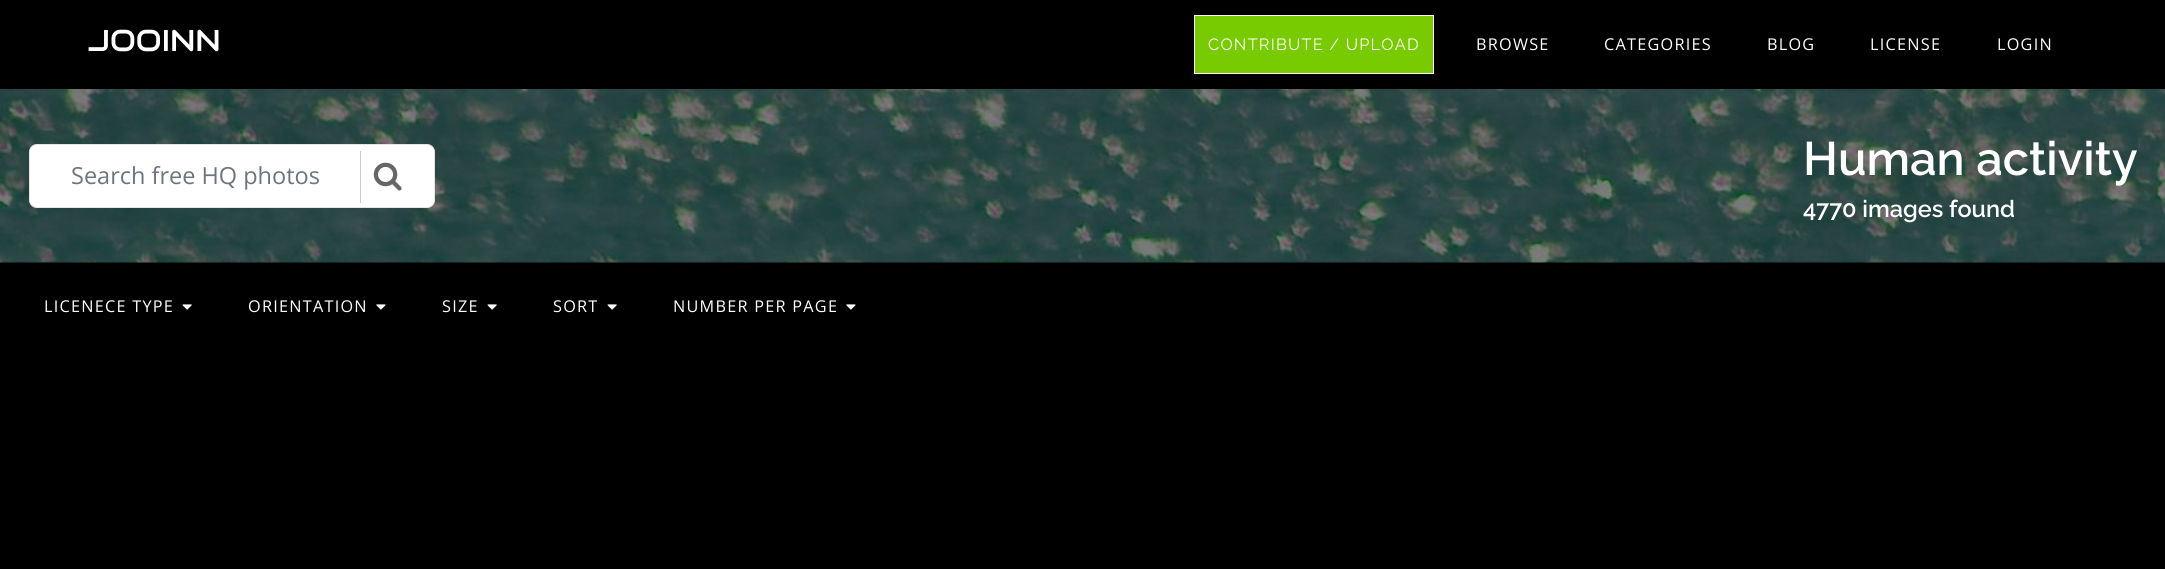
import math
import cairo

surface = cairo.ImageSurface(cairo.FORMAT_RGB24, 2165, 569)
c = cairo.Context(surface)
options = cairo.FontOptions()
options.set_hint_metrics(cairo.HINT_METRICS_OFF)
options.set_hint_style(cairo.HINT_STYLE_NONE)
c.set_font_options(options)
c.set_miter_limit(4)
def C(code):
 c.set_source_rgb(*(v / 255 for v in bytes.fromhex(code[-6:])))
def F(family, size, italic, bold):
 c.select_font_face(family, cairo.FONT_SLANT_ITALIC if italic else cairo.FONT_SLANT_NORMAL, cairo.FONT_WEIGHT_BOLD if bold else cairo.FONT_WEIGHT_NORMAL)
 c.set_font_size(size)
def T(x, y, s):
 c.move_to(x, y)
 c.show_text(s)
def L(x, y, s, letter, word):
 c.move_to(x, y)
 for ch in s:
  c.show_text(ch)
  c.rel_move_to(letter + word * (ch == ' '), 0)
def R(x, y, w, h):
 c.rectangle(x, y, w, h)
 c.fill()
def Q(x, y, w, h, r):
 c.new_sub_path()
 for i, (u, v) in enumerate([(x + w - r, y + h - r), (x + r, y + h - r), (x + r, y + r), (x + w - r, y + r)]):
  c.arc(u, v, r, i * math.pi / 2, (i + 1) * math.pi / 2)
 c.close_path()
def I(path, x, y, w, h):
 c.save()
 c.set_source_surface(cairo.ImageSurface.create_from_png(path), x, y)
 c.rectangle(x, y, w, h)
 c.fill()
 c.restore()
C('000000')
c.paint()
F('Audiowide',30,0,0)
C('ffffff')
T(88,51,'JOOINN')
C('78cb01')
c.rectangle(1194.5,15.5,239,58)
c.fill_preserve()
C('ffffff')
c.set_line_width(1)
c.stroke()
F('Raleway',16.25,0,0)
L(1208,50,'CONTRIBUTE / UPLOAD',1.25,0)
F('Open Sans',16.25,0,0)
L(1476,50,'BROWSE',1.25,0)
L(1604,50,'CATEGORIES',1.25,0)
L(1767,50,'BLOG',1.25,0)
L(1870,50,'LICENSE',1.25,0)
L(1997,50,'LOGIN',1.25,0)
I('1.png',0,89,2165,174)
Q(29.5,144.5,405,63,7.5)
c.fill_preserve()
C('e4e4e4')
c.stroke()
F('Open Sans',23.5,0,0)
C('6c757d')
T(71,184,'Search free HQ photos')
C('cccccc')
R(360,151,1,52)
I('2.png',373,162,29,29)
F('Raleway SemiBold',47,0,0)
C('ffffff')
T(1803,175,'Human activity')
F('Raleway SemiBold',23.5,0,0)
T(1803,217,'4770 images found')
F('Open Sans',16.25,0,0)
L(44,312,'LICENECE TYPE',1.25,0)
I('3.png',182,304,10,6)
L(248,312,'ORIENTATION',1.25,0)
I('4.png',376,304,10,6)
L(442,312,'SIZE',1.25,0)
I('3.png',487,304,10,6)
L(553,312,'SORT',1.25,0)
I('3.png',607,304,10,6)
L(673,312,'NUMBER PER PAGE',1.25,0)
I('4.png',846,304,10,6)
surface.write_to_png('o.png')
